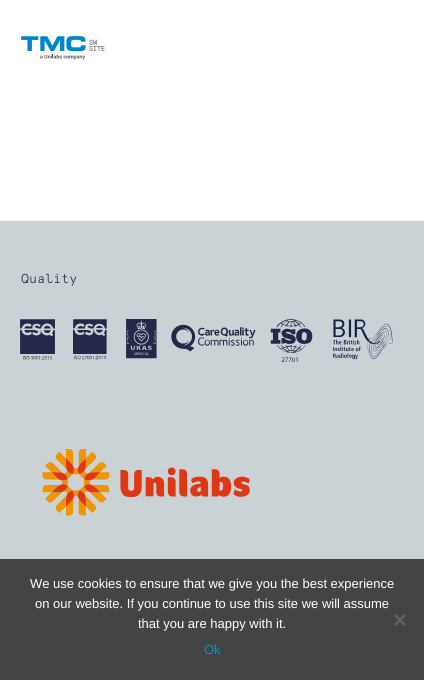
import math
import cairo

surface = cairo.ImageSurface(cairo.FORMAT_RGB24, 424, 680)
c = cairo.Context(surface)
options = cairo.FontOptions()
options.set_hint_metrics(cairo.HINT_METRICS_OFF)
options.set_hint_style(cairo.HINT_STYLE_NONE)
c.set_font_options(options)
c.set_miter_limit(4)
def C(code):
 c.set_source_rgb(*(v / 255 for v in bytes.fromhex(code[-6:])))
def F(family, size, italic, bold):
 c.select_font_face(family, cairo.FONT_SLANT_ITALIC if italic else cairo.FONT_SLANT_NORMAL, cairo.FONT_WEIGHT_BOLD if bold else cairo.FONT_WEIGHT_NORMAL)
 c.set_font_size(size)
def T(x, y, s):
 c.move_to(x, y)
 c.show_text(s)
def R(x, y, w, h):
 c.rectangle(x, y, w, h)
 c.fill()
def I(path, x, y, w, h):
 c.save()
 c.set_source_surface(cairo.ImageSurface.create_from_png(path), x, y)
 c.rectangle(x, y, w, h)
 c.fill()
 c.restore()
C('ffffff')
c.paint()
I('1.png',21,36,84,24)
C('cbd2d6')
R(0,221,424,338)
F('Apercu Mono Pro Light',13,0,0)
C('1f2549')
T(21,283,'Quality')
I('2.png',20,319,373,43)
I('3.png',42,449,208,67)
C('444444')
R(0,559,424,121)
F('Liberation Sans',13,0,0)
C('ffffff')
T(30,588,'We use cookies to ensure that we give you the best experience')
T(35,608,'on our website. If you continue to use this site we will assume')
T(138,628,'that you are happy with it.')
C('626262')
c.new_path()
c.move_to(404.5,614)
c.line_to(406,615.5)
c.line_to(395.5,626)
c.line_to(394,624.5)
c.close_path()
c.fill()
c.new_path()
c.move_to(394,615.5)
c.line_to(395.5,614)
c.line_to(406,624.5)
c.line_to(404.5,626)
c.close_path()
c.fill()
C('008fd4')
T(204,654,'Ok')
surface.write_to_png('o.png')
